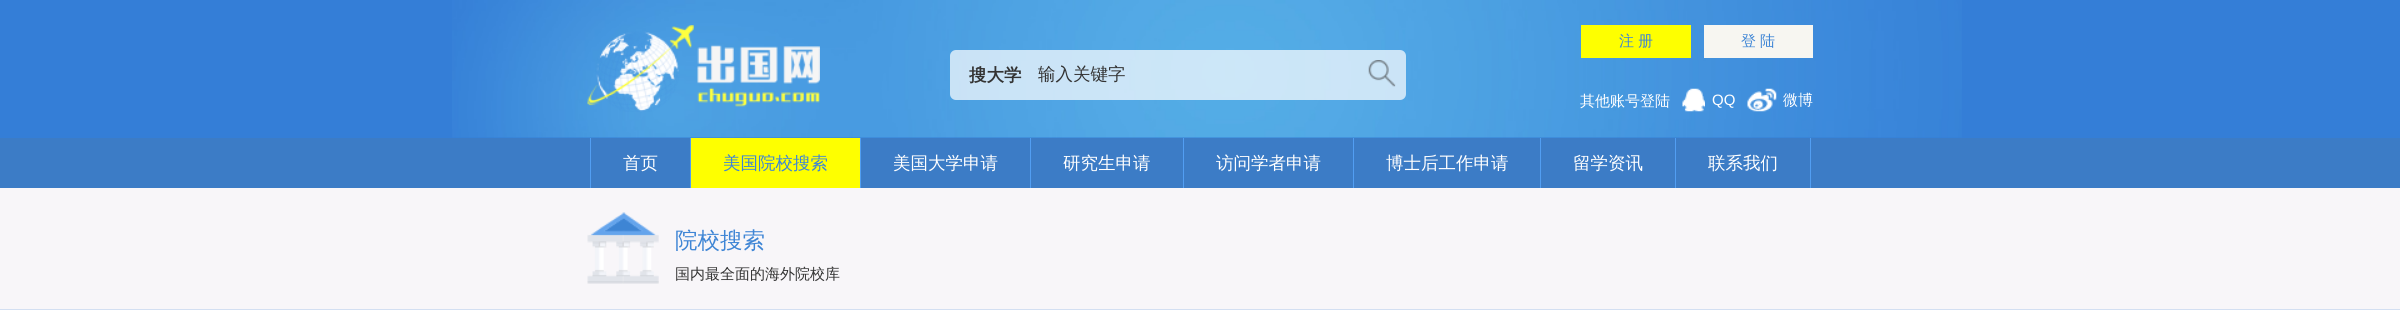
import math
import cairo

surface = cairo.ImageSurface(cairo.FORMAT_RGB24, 2400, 326)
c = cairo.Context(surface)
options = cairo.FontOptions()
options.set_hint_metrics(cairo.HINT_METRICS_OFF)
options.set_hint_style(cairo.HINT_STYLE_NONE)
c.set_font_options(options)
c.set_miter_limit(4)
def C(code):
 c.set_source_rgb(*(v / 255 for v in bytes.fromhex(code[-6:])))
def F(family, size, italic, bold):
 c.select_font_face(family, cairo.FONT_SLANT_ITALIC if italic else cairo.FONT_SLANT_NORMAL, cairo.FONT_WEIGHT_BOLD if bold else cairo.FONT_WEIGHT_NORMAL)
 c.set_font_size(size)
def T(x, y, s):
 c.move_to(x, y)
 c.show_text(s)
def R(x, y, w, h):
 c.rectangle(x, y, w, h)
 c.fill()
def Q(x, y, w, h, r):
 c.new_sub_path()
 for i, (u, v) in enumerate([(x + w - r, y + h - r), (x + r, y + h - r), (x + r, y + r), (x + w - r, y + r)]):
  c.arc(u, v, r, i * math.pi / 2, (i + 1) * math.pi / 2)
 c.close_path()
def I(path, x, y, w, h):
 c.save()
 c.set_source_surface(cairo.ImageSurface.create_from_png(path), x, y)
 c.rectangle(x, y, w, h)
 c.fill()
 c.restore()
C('ffffff')
c.paint()
C('347ed7')
R(0,0,2400,138)
I('1.png',452,0,1510,138)
I('2.png',587,25,233,87)
c.set_source_rgba(1,1,1,0.7)
Q(950,50,456,50,6)
c.fill()
F('WenQuanYi Zen Hei',17.5,0,1)
C('333333')
T(969,81,'搜大学')
c.save()
c.rectangle(1038,65,331,20)
c.clip()
F('WenQuanYi Zen Hei Medium',17.5,0,0)
T(1038,80,'输入关键字')
c.restore()
I('3.png',1368,60,28,27)
C('feff00')
R(1581,25,110,33)
F('WenQuanYi Zen Hei Medium',15,0,0)
C('3e85d5')
T(1619,46,'注')
T(1638,46,'册')
C('f7f6f1')
R(1704,25,109,33)
C('3e85d5')
T(1741,46,'登')
T(1760,46,'陆')
C('ffffff')
T(1580,106,'其他账号登陆')
I('4.png',1682,88,23,24)
F('Liberation Sans',15,0,0)
T(1712,105,'QQ')
I('5.png',1747,88,30,24)
F('WenQuanYi Zen Hei Medium',15,0,0)
T(1783,105,'微博')
C('3c7cc6')
R(0,138,2400,50)
C('529ef2')
R(590,138,1,50)
R(690,138,1,50)
F('WenQuanYi Zen Hei Medium',17.5,0,0)
C('ffffff')
T(623,169,'首页')
C('529ef2')
R(860,138,1,50)
C('feff00')
R(691,138,169,50)
C('3e85d5')
T(723,169,'美国院校搜索')
C('529ef2')
R(1030,138,1,50)
C('ffffff')
T(893,169,'美国大学申请')
C('529ef2')
R(1183,138,1,50)
C('ffffff')
T(1063,169,'研究生申请')
C('529ef2')
R(1353,138,1,50)
C('ffffff')
T(1216,169,'访问学者申请')
C('529ef2')
R(1540,138,1,50)
C('ffffff')
T(1386,169,'博士后工作申请')
C('529ef2')
R(1675,138,1,50)
C('ffffff')
T(1573,169,'留学资讯')
C('529ef2')
R(1810,138,1,50)
C('ffffff')
T(1708,169,'联系我们')
C('f8f6f9')
R(0,188,2400,121)
I('6.png',587,212,72,72)
F('WenQuanYi Zen Hei Medium',22.5,0,0)
C('3e85d5')
T(675,248,'院校搜索')
F('WenQuanYi Zen Hei Medium',15,0,0)
C('333333')
T(675,279,'国内最全面的海外院校库')
C('d3dff2')
R(0,309,2400,1)
surface.write_to_png('o.png')
